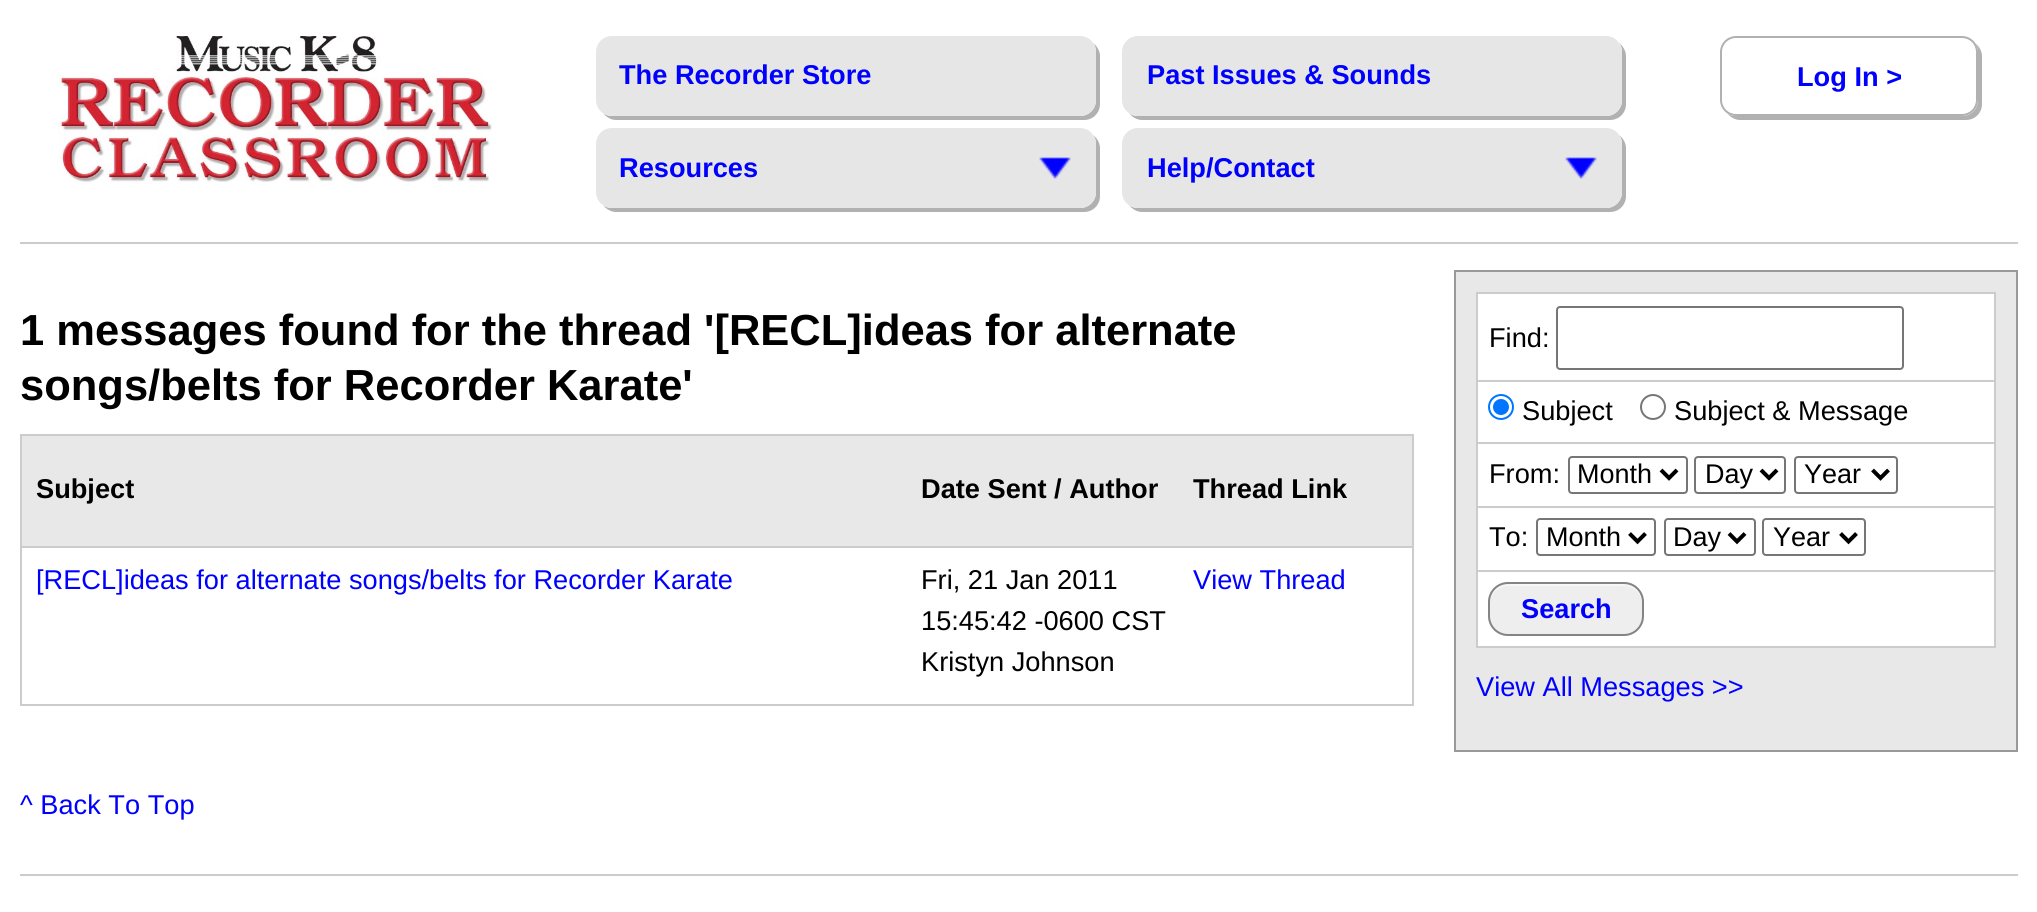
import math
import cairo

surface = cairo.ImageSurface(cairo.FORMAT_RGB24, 2037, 912)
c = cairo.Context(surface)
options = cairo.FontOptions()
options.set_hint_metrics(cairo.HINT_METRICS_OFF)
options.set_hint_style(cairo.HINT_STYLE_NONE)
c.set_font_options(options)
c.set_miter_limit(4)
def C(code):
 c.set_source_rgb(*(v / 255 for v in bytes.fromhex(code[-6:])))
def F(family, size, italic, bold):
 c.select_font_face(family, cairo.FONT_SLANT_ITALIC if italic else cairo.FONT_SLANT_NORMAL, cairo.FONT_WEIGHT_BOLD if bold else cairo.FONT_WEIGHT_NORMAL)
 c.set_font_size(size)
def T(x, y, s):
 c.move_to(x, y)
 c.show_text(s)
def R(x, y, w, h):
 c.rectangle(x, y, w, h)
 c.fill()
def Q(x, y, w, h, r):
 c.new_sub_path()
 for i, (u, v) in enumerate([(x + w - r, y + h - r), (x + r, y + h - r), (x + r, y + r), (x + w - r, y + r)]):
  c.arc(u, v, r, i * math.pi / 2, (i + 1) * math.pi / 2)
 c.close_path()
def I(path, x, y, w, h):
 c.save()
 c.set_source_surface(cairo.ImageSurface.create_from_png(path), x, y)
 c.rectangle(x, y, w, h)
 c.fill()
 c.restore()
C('ffffff')
c.paint()
C('cbcbcb')
R(20,242,1998,2)
I('1.png',58,36,434,146)
C('b1b1b1')
c.new_path()
c.move_to(603,113)
c.curve_to(606,117,611,120,616,120)
c.line_to(1084,120)
c.curve_to(1093,120,1100,113,1100,104)
c.line_to(1100,56)
c.curve_to(1100,51,1097,46,1093,43)
c.curve_to(1095,45,1096,49,1096,52)
c.line_to(1096,100)
c.curve_to(1096,109,1089,116,1080,116)
c.line_to(612,116)
c.curve_to(609,116,605,115,603,113)
c.close_path()
c.fill()
C('e6e6e6')
Q(596,36,500,80,16)
c.fill()
F('Liberation Sans',27.2,0,1)
C('0000ff')
T(619,84,'The Recorder Store')
C('b1b1b1')
c.new_path()
c.move_to(1129,113)
c.curve_to(1132,117,1137,120,1142,120)
c.line_to(1610,120)
c.curve_to(1619,120,1626,113,1626,104)
c.line_to(1626,56)
c.curve_to(1626,51,1623,46,1619,43)
c.curve_to(1621,45,1622,49,1622,52)
c.line_to(1622,100)
c.curve_to(1622,109,1615,116,1606,116)
c.line_to(1138,116)
c.curve_to(1135,116,1131,115,1129,113)
c.close_path()
c.fill()
C('e6e6e6')
Q(1122,36,500,80,16)
c.fill()
C('0000ff')
T(1147,84,'Past Issues & Sounds')
C('b1b1b1')
c.new_path()
c.move_to(603,205)
c.curve_to(606,209,611,212,616,212)
c.line_to(1084,212)
c.curve_to(1093,212,1100,205,1100,196)
c.line_to(1100,148)
c.curve_to(1100,143,1097,138,1093,135)
c.curve_to(1095,137,1096,141,1096,144)
c.line_to(1096,192)
c.curve_to(1096,201,1089,208,1080,208)
c.line_to(612,208)
c.curve_to(609,208,605,207,603,205)
c.close_path()
c.fill()
C('e6e6e6')
Q(596,128,500,80,16)
c.fill()
I('2.png',1039,157,32,22)
C('0000ff')
T(619,177,'Resources')
C('b1b1b1')
c.new_path()
c.move_to(1129,205)
c.curve_to(1132,209,1137,212,1142,212)
c.line_to(1610,212)
c.curve_to(1619,212,1626,205,1626,196)
c.line_to(1626,148)
c.curve_to(1626,143,1623,138,1619,135)
c.curve_to(1621,137,1622,141,1622,144)
c.line_to(1622,192)
c.curve_to(1622,201,1615,208,1606,208)
c.line_to(1138,208)
c.curve_to(1135,208,1131,207,1129,205)
c.close_path()
c.fill()
C('e6e6e6')
Q(1122,128,500,80,16)
c.fill()
I('2.png',1565,157,32,22)
C('0000ff')
T(1147,177,'Help/Contact')
C('b1b1b1')
c.new_path()
c.move_to(1727,113)
c.curve_to(1730,117,1735,120,1740,120)
c.line_to(1966,120)
c.curve_to(1975,120,1982,113,1982,104)
c.line_to(1982,56)
c.curve_to(1982,51,1979,46,1975,43)
c.curve_to(1977,45,1978,49,1978,52)
c.line_to(1978,100)
c.curve_to(1978,109,1971,116,1962,116)
c.line_to(1736,116)
c.curve_to(1733,116,1729,115,1727,113)
c.close_path()
c.fill()
C('ffffff')
Q(1721,37,256,78,15)
c.fill_preserve()
C('b1b1b1')
c.stroke()
C('0000ff')
T(1797,86,'Log In >')
F('Liberation Sans',43.5,0,1)
C('000000')
T(20,345,'1 messages found for the thread \'[RECL]ideas for alternate')
T(20,400,'songs/belts for Recorder Karate\'')
C('cccccc')
R(20,434,1394,2)
R(1412,434,2,272)
R(20,434,2,272)
C('e8e8e8')
R(22,436,1390,110)
C('cccccc')
R(22,546,1390,2)
F('Liberation Sans',27.2,0,1)
C('000000')
T(36,498,'Subject')
T(921,498,'Date Sent / Author')
T(1193,498,'Thread Link')
C('cccccc')
R(22,704,1390,2)
F('Liberation Sans',27.2,0,0)
C('0000ff')
T(36,589,'[RECL]ideas for alternate songs/belts for Recorder Karate')
C('000000')
T(921,589,'Fri, 21 Jan 2011')
T(921,630,'15:45:42 -0600 CST')
T(921,671,'Kristyn Johnson')
C('0000ff')
T(1193,589,'View Thread')
C('e8e8e8')
c.rectangle(1455,271,562,480)
c.fill_preserve()
C('999999')
c.stroke()
C('ffffff')
R(1478,294,516,352)
C('cccccc')
R(1476,292,520,2)
R(1994,292,2,356)
R(1476,292,2,356)
R(1478,380,516,2)
C('000000')
T(1489,347,'Find:')
Q(1557,307,346,62,3)
C('767676')
c.stroke()
C('cccccc')
R(1478,442,516,2)
c.arc(1501,407,12,0,2 * math.pi)
C('0075ff')
c.stroke()
c.arc(1501,407,8,0,2 * math.pi)
c.fill()
C('000000')
T(1522,420,'Subject')
c.new_path()
c.arc(1653,407,12,0,2 * math.pi)
C('767676')
c.stroke()
C('000000')
T(1674,420,'Subject & Message')
C('cccccc')
R(1478,506,516,2)
C('000000')
T(1489,483,'From:')
Q(1569,457,118,36,3)
C('767676')
c.stroke()
c.new_path()
c.move_to(1661,470)
c.line_to(1669,478)
c.line_to(1677,470)
C('000000')
c.set_line_width(4)
c.stroke()
F('Liberation Sans',27,0,0)
T(1577,483,'Month')
Q(1695,457,90,36,3)
C('767676')
c.set_line_width(2)
c.stroke()
c.new_path()
c.move_to(1761,470)
c.line_to(1769,478)
c.line_to(1777,470)
C('000000')
c.set_line_width(4)
c.stroke()
T(1705,483,'Day')
Q(1795,457,102,36,3)
C('767676')
c.set_line_width(2)
c.stroke()
c.new_path()
c.move_to(1872.5,470)
c.line_to(1880.5,478)
c.line_to(1888.5,470)
C('000000')
c.set_line_width(4)
c.stroke()
T(1804,483,'Year')
C('cccccc')
R(1478,570,516,2)
F('Liberation Sans',27.2,0,0)
C('000000')
T(1489,546,'To:')
Q(1537,519,118,36,3)
C('767676')
c.set_line_width(2)
c.stroke()
c.new_path()
c.move_to(1629.5,533.5)
c.line_to(1637.5,541.5)
c.line_to(1645.5,533.5)
C('000000')
c.set_line_width(4)
c.stroke()
F('Liberation Sans',27,0,0)
T(1546,546,'Month')
Q(1665,519,90,36,3)
C('767676')
c.set_line_width(2)
c.stroke()
c.new_path()
c.move_to(1729,533.5)
c.line_to(1737,541.5)
c.line_to(1745,533.5)
C('000000')
c.set_line_width(4)
c.stroke()
T(1673,546,'Day')
Q(1763,519,102,36,3)
C('767676')
c.set_line_width(2)
c.stroke()
c.new_path()
c.move_to(1840.5,533.5)
c.line_to(1848.5,541.5)
c.line_to(1856.5,533.5)
C('000000')
c.set_line_width(4)
c.stroke()
T(1773,546,'Year')
C('cccccc')
R(1478,646,516,2)
C('eeeeee')
Q(1488,582,156,54,20)
c.fill()
C('f7f7f7')
c.new_path()
c.move_to(1508,586)
c.line_to(1624,586)
c.curve_to(1634,586,1642,594,1642,604)
c.curve_to(1642,581,1622,584,1605,584)
c.line_to(1527,584)
c.curve_to(1510,584,1490,581,1490,604)
c.curve_to(1490,594,1498,586,1508,586)
c.close_path()
c.fill()
Q(1489,583,154,52,19)
C('848484')
c.set_line_width(2)
c.stroke()
F('Liberation Sans',27.2,0,1)
C('0000ff')
T(1521,618,'Search')
F('Liberation Sans',27.2,0,0)
T(1476,696,'View All Messages >>')
T(20,814,'^ Back To Top')
C('cccccc')
R(20,874,1998,2)
surface.write_to_png('o.png')
